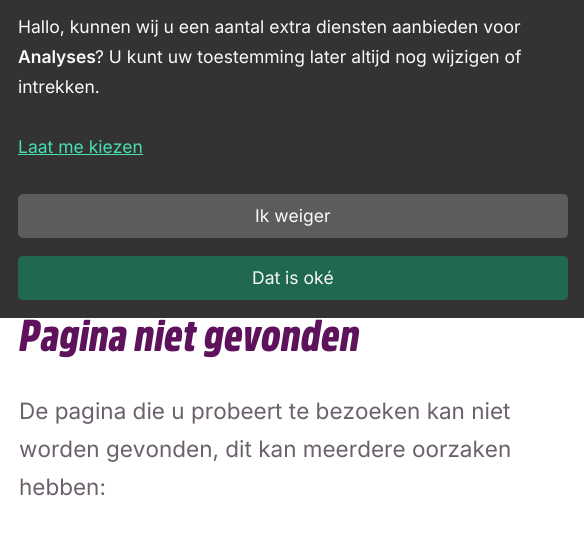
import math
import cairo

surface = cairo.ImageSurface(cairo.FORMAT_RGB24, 584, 536)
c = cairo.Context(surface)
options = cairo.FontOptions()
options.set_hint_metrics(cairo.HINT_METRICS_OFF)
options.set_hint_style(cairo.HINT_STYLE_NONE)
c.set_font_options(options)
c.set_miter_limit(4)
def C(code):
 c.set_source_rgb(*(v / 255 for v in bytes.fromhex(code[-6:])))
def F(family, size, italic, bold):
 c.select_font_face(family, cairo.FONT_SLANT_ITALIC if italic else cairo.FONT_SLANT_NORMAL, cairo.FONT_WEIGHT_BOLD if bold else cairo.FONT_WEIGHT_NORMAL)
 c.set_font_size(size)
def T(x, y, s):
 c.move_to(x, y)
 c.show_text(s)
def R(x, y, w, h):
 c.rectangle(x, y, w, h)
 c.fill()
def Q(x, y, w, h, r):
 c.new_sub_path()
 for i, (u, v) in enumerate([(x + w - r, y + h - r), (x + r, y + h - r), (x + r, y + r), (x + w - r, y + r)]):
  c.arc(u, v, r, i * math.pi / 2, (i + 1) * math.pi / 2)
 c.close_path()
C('ffffff')
c.paint()
C('333333')
R(0,0,584,318)
F('Inter',17.5,0,0)
C('fafafa')
T(18,33,'Hallo, kunnen wij u een aantal extra diensten aanbieden voor')
F('Inter SemiBold',17.5,0,0)
T(18,63,'Analyses')
F('Inter',17.5,0,0)
T(95,63,'? U kunt uw toestemming later altijd nog wijzigen of')
T(18,93,'intrekken.')
C('48dfb2')
T(18,153,'Laat me kiezen')
R(18,154,125,1)
C('5c5c5c')
Q(18,194,550,44,5)
c.fill()
C('fafafa')
T(255,222,'Ik weiger')
C('216853')
Q(18,256,550,44,5)
c.fill()
C('fafafa')
T(252,284,'Dat is oké')
F('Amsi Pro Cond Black',44.25,1,0)
C('5d125b')
T(19,351,'Pagina niet gevonden')
F('Inter',22.5,0,0)
C('6b616c')
T(19,419,'De pagina die u probeert te bezoeken kan niet')
T(19,457,'worden gevonden, dit kan meerdere oorzaken')
T(19,495,'hebben:')
surface.write_to_png('o.png')
